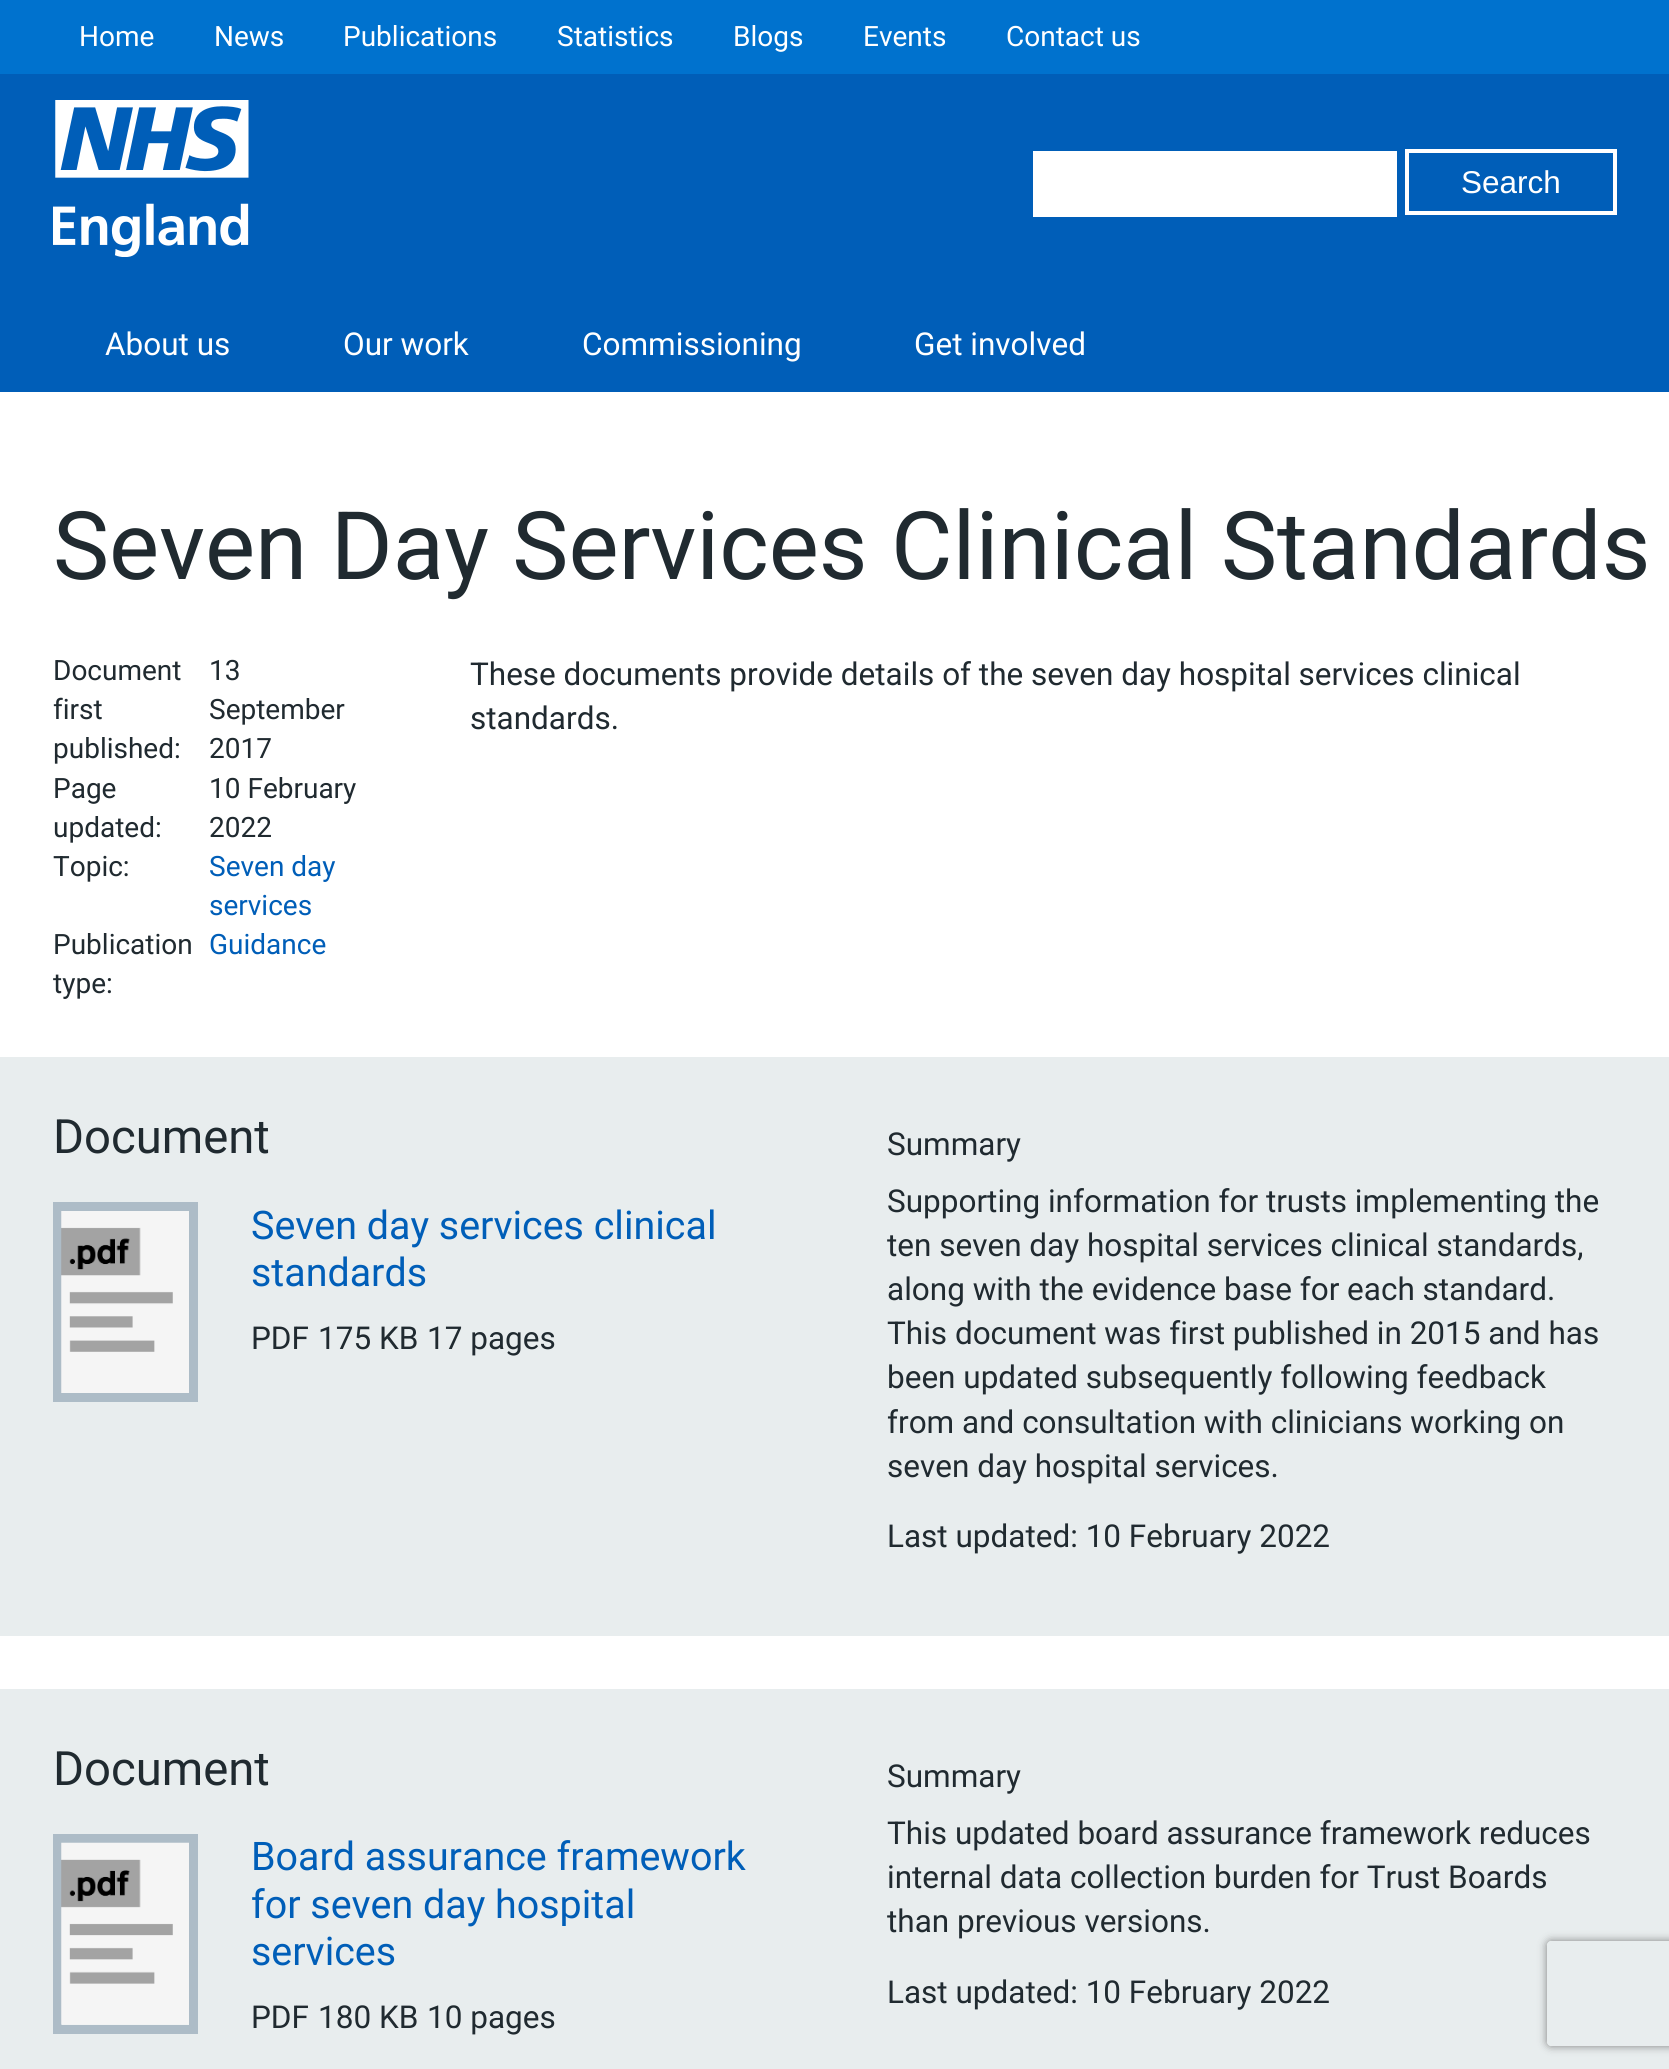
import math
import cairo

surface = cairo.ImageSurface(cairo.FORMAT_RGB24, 1669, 2069)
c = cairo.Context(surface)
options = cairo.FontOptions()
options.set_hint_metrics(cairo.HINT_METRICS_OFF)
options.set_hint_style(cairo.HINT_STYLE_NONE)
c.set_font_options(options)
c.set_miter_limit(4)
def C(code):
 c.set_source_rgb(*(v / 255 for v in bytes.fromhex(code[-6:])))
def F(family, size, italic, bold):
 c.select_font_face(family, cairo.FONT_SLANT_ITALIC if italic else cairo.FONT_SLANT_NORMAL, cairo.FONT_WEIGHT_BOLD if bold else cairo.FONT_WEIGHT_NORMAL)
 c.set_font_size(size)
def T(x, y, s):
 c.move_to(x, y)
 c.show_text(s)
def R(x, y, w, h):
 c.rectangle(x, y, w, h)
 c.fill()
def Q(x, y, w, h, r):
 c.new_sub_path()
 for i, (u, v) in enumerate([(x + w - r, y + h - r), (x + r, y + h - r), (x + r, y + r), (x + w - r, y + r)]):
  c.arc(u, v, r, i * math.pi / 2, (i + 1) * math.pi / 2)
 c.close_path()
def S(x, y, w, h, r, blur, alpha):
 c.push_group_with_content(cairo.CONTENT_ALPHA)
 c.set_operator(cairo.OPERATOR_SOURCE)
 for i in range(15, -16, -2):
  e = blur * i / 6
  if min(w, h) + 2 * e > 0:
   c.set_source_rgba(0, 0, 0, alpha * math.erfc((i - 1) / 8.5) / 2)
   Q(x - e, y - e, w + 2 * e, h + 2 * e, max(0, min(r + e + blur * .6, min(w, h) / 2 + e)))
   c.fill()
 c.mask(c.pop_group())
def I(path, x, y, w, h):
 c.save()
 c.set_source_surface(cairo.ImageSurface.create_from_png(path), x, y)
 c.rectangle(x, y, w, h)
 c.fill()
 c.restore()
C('ffffff')
c.paint()
C('0072ce')
R(0,0,1669,74)
F('Roboto',28,0,0)
C('ffffff')
T(79,46,'Home')
T(214,46,'News')
T(343,46,'Publications')
T(557,46,'Statistics')
T(733,46,'Blogs')
T(863,46,'Events')
T(1006,46,'Contact us')
C('005eb8')
R(0,74,1669,318)
I('1.png',53,100,196,157)
C('ffffff')
R(1033,151,364,66)
c.rectangle(1407,151,208,62)
c.set_line_width(4)
c.stroke()
F('Liberation Sans',31.5,0,0)
T(1461,193,'Search')
F('Roboto',31.5,0,0)
T(105,355,'About us')
T(343,355,'Our work')
T(582,355,'Commissioning')
T(914,355,'Get involved')
F('Roboto',94.5,0,0)
C('202a30')
T(53,579,'Seven Day Services Clinical Standards')
F('Roboto',28,0,0)
T(53,680,'Document')
T(53,719,'first')
T(53,758,'published:')
T(209,680,'13')
T(209,719,'September')
T(209,758,'2017')
T(53,798,'Page')
T(53,837,'updated:')
T(209,798,'10 February')
T(209,837,'2022')
T(53,876,'Topic:')
C('005eb8')
T(209,876,'Seven day')
T(209,915,'services')
C('202a30')
T(53,954,'Publication')
T(53,993,'type:')
C('005eb8')
T(209,954,'Guidance')
F('Roboto',31.5,0,0)
C('202a30')
T(470,685,'These documents provide details of the seven day hospital services clinical')
T(470,729,'standards.')
C('e8edee')
R(0,1057,1669,579)
F('Roboto',47.25,0,0)
C('202a30')
T(53,1153,'Document')
c.rectangle(57.5,1206.5,136,191)
C('adbcc7')
c.set_line_width(9)
c.stroke()
I('2.png',61,1211,128,182)
F('Roboto',39.4,0,0)
C('005eb8')
T(251,1239,'Seven day services clinical')
T(251,1286,'standards')
F('Roboto',31.5,0,0)
C('202a30')
T(251,1349,'PDF')
T(318,1349,'175 KB')
T(427,1349,'17 pages')
T(887,1155,'Summary')
T(887,1212,'Supporting information for trusts implementing the')
T(887,1256,'ten seven day hospital services clinical standards,')
T(887,1300,'along with the evidence base for each standard.')
T(887,1344,'This document was first published in 2015 and has')
T(887,1388,'been updated subsequently following feedback')
T(887,1433,'from and consultation with clinicians working on')
T(887,1477,'seven day hospital services.')
T(887,1547,'Last updated: 10 February 2022')
C('e8edee')
R(0,1689,1669,380)
F('Roboto',47.25,0,0)
C('202a30')
T(53,1785,'Document')
c.rectangle(57.5,1838.5,136,191)
C('adbcc7')
c.stroke()
I('3.png',61,1842,128,183)
F('Roboto',39.4,0,0)
C('005eb8')
T(251,1870,'Board assurance framework')
T(251,1918,'for seven day hospital')
T(251,1965,'services')
F('Roboto',31.5,0,0)
C('202a30')
T(251,2028,'PDF')
T(318,2028,'180 KB')
T(427,2028,'10 pages')
T(887,1787,'Summary')
T(887,1844,'This updated board assurance framework reduces')
T(887,1888,'internal data collection burden for Trust Boards')
T(887,1932,'than previous versions.')
T(887,2003,'Last updated: 10 February 2022')
c.save()
c.set_fill_rule(cairo.FILL_RULE_EVEN_ODD)
c.new_path()
c.move_to(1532,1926)
c.line_to(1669,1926)
c.line_to(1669,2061)
c.line_to(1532,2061)
c.close_path()
c.move_to(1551,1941)
c.line_to(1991,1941)
c.curve_to(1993,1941,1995,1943,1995,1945)
c.line_to(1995,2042)
c.curve_to(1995,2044,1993,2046,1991,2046)
c.line_to(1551,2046)
c.curve_to(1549,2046,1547,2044,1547,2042)
c.line_to(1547,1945)
c.curve_to(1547,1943,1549,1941,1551,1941)
c.close_path()
c.clip()
C('808080')
S(1547,1941,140,105,4,4.5,1)
c.restore()
surface.write_to_png('o.png')
